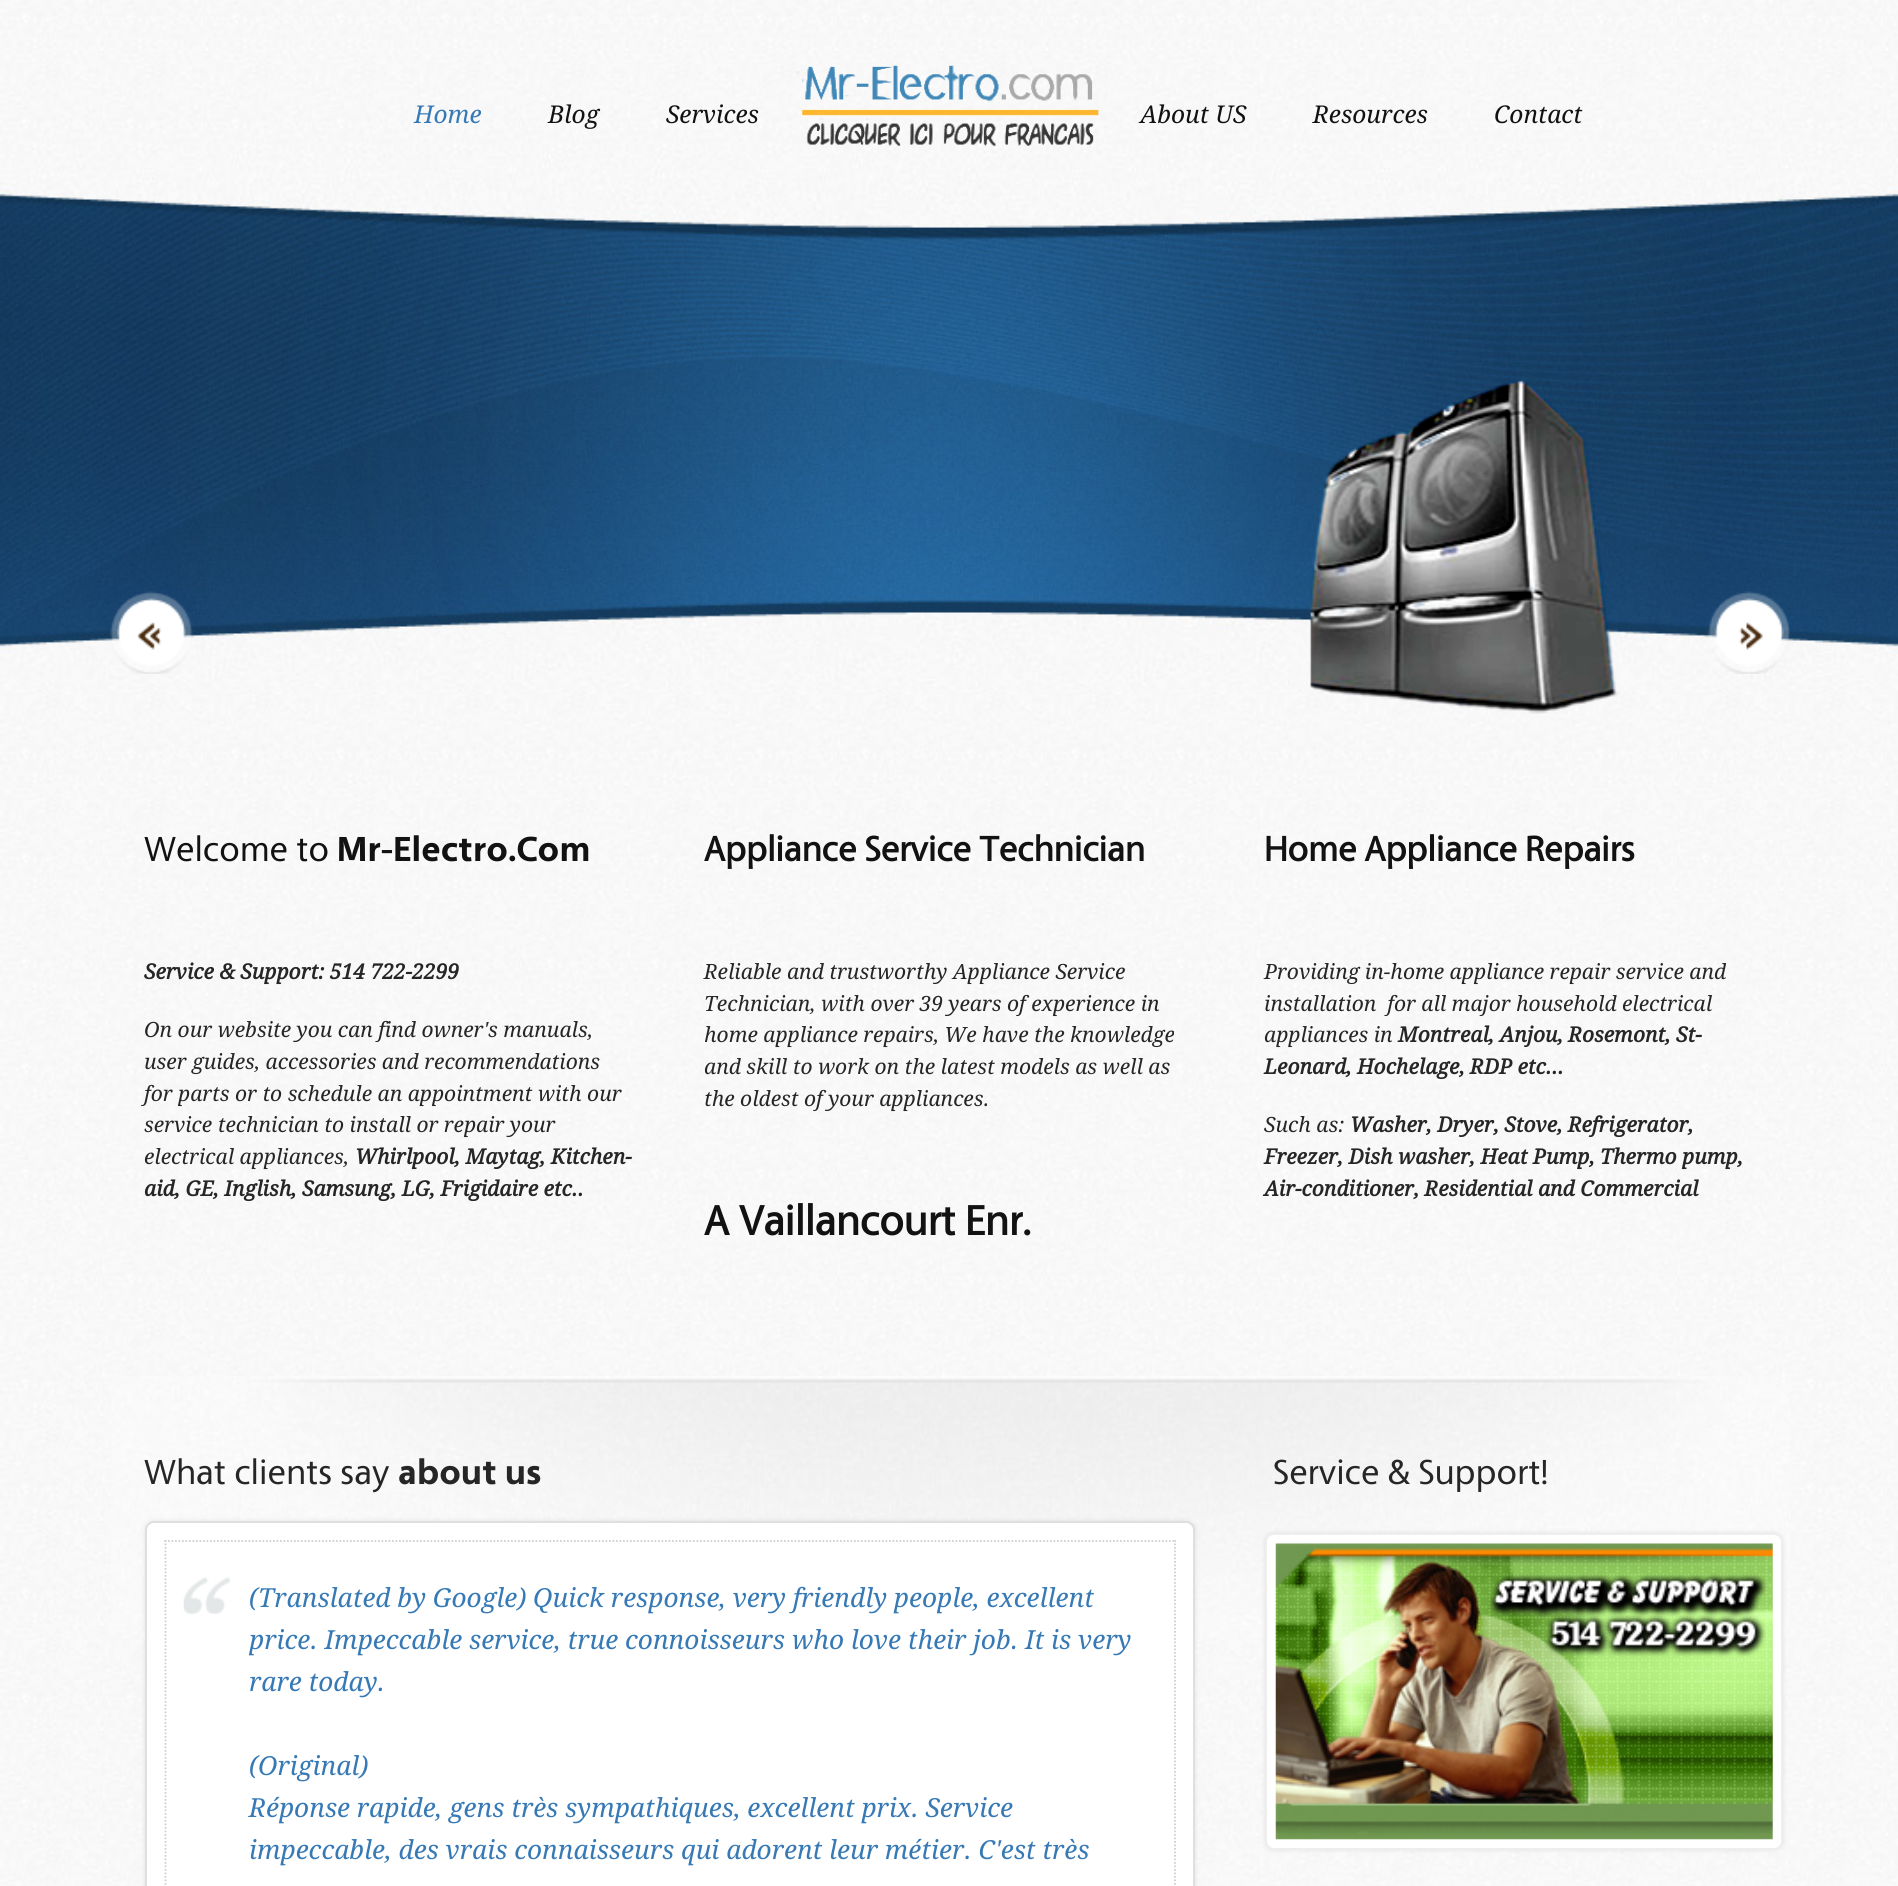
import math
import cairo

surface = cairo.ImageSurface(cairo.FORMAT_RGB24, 1898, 1886)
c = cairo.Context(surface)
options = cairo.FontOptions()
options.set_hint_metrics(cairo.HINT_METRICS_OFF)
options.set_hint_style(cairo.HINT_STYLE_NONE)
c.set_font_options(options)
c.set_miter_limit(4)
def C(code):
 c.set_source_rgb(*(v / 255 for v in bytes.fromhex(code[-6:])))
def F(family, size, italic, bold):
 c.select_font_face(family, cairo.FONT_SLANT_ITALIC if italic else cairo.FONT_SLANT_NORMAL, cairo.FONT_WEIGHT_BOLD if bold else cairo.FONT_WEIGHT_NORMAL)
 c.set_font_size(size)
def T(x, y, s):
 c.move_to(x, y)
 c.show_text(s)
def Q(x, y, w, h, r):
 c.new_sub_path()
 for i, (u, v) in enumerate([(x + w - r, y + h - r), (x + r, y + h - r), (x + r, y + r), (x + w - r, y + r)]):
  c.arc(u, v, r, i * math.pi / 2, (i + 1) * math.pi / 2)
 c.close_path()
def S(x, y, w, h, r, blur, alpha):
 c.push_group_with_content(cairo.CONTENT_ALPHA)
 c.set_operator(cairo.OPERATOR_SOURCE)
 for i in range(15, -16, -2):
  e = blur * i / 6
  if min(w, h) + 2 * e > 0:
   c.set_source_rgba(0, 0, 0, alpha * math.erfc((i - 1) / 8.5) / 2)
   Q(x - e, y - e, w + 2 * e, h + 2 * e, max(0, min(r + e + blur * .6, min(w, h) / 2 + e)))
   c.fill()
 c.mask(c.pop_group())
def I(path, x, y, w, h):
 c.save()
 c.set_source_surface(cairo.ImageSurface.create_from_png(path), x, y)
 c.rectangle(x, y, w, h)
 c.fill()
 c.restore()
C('ffffff')
c.paint()
I('1.png',0,0,1898,1886)
F('Droid Serif',24.5,1,0)
C('3679b5')
T(414,123,'Home')
C('121212')
T(548,123,'Blog')
T(666,123,'Services')
I('2.png',796,65,303,81)
T(1140,123,'About US')
T(1313,123,'Resources')
T(1494,123,'Contact')
I('3.png',0,154,1898,532)
I('4.png',1310,379,310,335)
I('5.png',110,591,83,83)
I('6.png',1708,591,82,83)
F('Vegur',36.75,0,0)
T(144,861,'Welcome to')
F('Vegur',36.75,0,1)
T(337,861,'Mr-Electro.Com')
F('Droid Serif',21,1,1)
C('262626')
T(144,979,'Service & Support: 514 722-2299')
F('Droid Serif',21,1,0)
T(144,1037,'On our website you can find owner\'s manuals,')
T(144,1069,'user guides, accessories and recommendations')
T(144,1101,'for parts or to schedule an appointment with our')
T(144,1132,'service technician to install or repair your')
T(144,1164,'electrical appliances,')
F('Droid Serif',21,1,1)
T(355,1164,'Whirlpool, Maytag, Kitchen-')
T(144,1196,'aid, GE, Inglish, Samsung, LG, Frigidaire etc..')
F('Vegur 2',36.75,0,1)
C('121212')
T(704,861,'Appliance Service Technician')
F('Droid Serif',21,1,0)
C('262626')
T(704,979,'Reliable and trustworthy Appliance Service')
T(704,1011,'Technician, with over 39 years of experience in')
T(704,1042,'home appliance repairs, We have the knowledge')
T(704,1074,'and skill to work on the latest models as well as')
T(704,1106,'the oldest of your appliances.')
F('Vegur 2',43.75,0,1)
C('121212')
T(704,1235,'A Vaillancourt Enr.')
F('Vegur 2',36.75,0,1)
T(1264,861,'Home Appliance Repairs')
F('Droid Serif',21,1,0)
C('262626')
T(1264,979,'Providing in-home appliance repair service and')
T(1264,1011,'installation  for all major household electrical')
T(1264,1042,'appliances in')
F('Droid Serif',21,1,1)
T(1398,1042,'Montreal, Anjou, Rosemont, St-')
T(1264,1074,'Leonard, Hochelage, RDP etc...')
F('Droid Serif',21,1,0)
T(1264,1132,'Such as:')
F('Droid Serif',21,1,1)
T(1350,1132,'Washer, Dryer, Stove, Refrigerator,')
T(1264,1164,'Freezer, Dish washer, Heat Pump, Thermo pump,')
T(1264,1196,'Air-conditioner, Residential and Commercial')
I('7.png',111,1376,1679,262)
F('Vegur',36.75,0,0)
T(144,1484,'What clients say')
F('Vegur',36.75,0,1)
T(398,1484,'about us')
C('000000')
S(145,1521,1050,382,9,2.5,.1)
C('ffffff')
Q(146,1522,1048,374,8)
c.fill_preserve()
C('dfdfdf')
c.stroke()
I('8.png',183,1577,48,38)
c.new_path()
c.move_to(164.5,1541)
c.line_to(1176,1541)
C('d0d0d0')
c.set_line_width(1.8)
c.set_dash([1.75,1.75])
c.stroke()
c.new_path()
c.move_to(1175,1540)
c.line_to(1175,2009)
c.stroke()
c.new_path()
c.move_to(165.5,1540)
c.line_to(165.5,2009)
c.stroke()
F('Droid Serif',26.25,1,0)
C('3679b5')
T(249,1607,'(Translated by Google) Quick response, very friendly people, excellent')
T(249,1649,'price. Impeccable service, true connoisseurs who love their job. It is very')
T(249,1691,'rare today.')
T(249,1775,'(Original)')
T(249,1817,'Réponse rapide, gens très sympathiques, excellent prix. Service')
T(249,1859,'impeccable, des vrais connaisseurs qui adorent leur métier. C\'est très')
F('Vegur',36.75,0,0)
C('262626')
T(1273,1484,'Service & Support!')
C('000000')
S(1265,1533,518,317,9,2.5,.1)
C('ffffff')
Q(1266,1534,516,315,8)
c.fill_preserve()
C('eeeeee')
c.set_line_width(2)
c.set_dash([])
c.stroke()
I('9.png',1275,1543,498,297)
surface.write_to_png('o.png')
